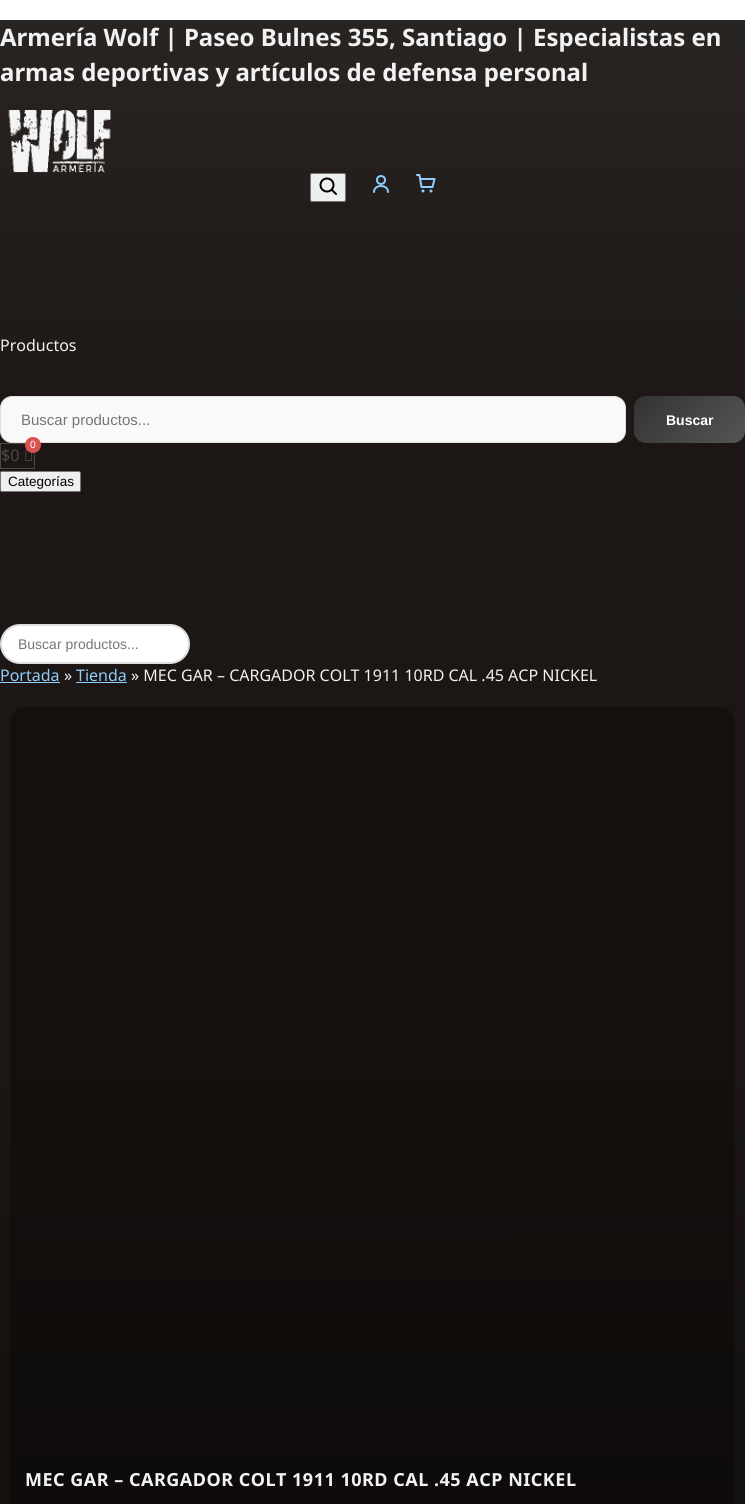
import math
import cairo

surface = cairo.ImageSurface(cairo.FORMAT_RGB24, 745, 1504)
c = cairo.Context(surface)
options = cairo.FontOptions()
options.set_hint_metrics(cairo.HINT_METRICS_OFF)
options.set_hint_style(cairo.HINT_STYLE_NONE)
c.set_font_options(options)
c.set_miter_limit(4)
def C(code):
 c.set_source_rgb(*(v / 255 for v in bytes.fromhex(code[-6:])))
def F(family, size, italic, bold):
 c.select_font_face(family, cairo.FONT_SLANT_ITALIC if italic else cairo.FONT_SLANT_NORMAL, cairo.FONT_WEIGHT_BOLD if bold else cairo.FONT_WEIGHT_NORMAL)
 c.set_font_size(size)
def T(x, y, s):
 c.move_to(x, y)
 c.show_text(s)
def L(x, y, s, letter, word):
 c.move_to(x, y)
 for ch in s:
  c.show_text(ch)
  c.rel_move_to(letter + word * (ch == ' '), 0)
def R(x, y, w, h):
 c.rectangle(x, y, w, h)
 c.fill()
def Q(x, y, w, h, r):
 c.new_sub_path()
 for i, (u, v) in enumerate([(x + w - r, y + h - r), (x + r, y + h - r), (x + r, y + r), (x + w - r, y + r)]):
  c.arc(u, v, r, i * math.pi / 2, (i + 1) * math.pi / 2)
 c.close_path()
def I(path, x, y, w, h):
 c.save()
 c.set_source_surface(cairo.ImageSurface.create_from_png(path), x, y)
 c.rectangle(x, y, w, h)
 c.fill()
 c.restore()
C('ffffff')
c.paint()
C('1c1714')
R(0,20,745,1484)
C('8ecdfc')
R(0,682,60,1)
R(76,682,51,1)
gradient = cairo.LinearGradient(372,0,373,1504)
gradient.add_color_stop_rgba(0,1,1,1,.06)
gradient.add_color_stop_rgba(.3,1,1,1,0)
gradient.add_color_stop_rgba(.7,0,0,0,0)
gradient.add_color_stop_rgba(1,0,0,0,.3)
c.set_source(gradient)
R(0,20,745,1484)
F('Noto Sans',24,0,1)
C('f2f2f2')
T(0,46,'Armería Wolf | Paseo Bulnes 355, Santiago | Especialistas en')
T(0,81,'armas deportivas y artículos de defensa personal')
I('1.png',8,110,103,63)
C('efefef')
Q(310.5,173.5,35,28,1.5)
c.fill_preserve()
C('767676')
c.set_line_width(1)
c.stroke()
c.arc(327,185,6.5,0,2 * math.pi)
C('000000')
c.set_line_width(2)
c.stroke()
c.new_path()
c.move_to(332,190)
c.line_to(336,194)
c.set_line_cap(cairo.LINE_CAP_ROUND)
c.stroke()
c.arc(381,180,4,0,2 * math.pi)
C('8ecdfc')
c.set_line_cap(cairo.LINE_CAP_BUTT)
c.stroke()
c.new_path()
c.move_to(374,192)
c.curve_to(374,184,388,184,388,192)
c.set_line_cap(cairo.LINE_CAP_ROUND)
c.stroke()
c.new_path()
c.move_to(417,175)
c.line_to(419.5,175)
c.line_to(421.5,187)
c.line_to(432.5,187)
c.line_to(434.5,179)
c.line_to(421,179)
c.set_line_join(cairo.LINE_JOIN_ROUND)
c.stroke()
c.arc(423,191,1.5,0,2 * math.pi)
c.fill()
c.arc(431,191,1.5,0,2 * math.pi)
c.fill()
F('Noto Sans',16,0,0)
C('f2f2f2')
T(0,351,'Productos')
C('f9f9f9')
Q(.5,396.5,625,46,11.5)
c.fill_preserve()
C('e0e0e0')
c.set_line_width(1)
c.set_line_cap(cairo.LINE_CAP_BUTT)
c.set_line_join(cairo.LINE_JOIN_MITER)
c.stroke()
F('Liberation Sans',15,0,0)
C('757575')
T(21,425,'Buscar productos...')
gradient = cairo.LinearGradient(650,380,729,459)
gradient.add_color_stop_rgba(0,0.2,0.2,0.2,1)
gradient.add_color_stop_rgba(1,0.333,0.333,0.333,1)
c.set_source(gradient)
Q(634,396,111,47,12)
c.fill()
F('Liberation Sans',14,0,1)
C('ffffff')
T(666,425,'Buscar')
c.rectangle(.5,443.5,34,25)
C('4d4848')
c.stroke()
I('2.png',25,449,8,12)
C('d9534f')
c.arc(33,445,8,0,2 * math.pi)
c.fill()
F('Noto Sans',10,0,0)
C('ffffff')
T(30,448,'0')
F('Noto Sans',16,0,0)
C('4d4848')
T(1,461,'$0')
C('efefef')
Q(.5,471.5,80,20,1.5)
c.fill_preserve()
C('767676')
c.stroke()
F('Liberation Sans',13.5,0,0)
C('000000')
T(8,486,'Categorías')
C('ffffff')
Q(1,625,188,38,19)
c.fill_preserve()
C('dddddd')
c.set_line_width(2)
c.stroke()
F('Liberation Sans',14,0,0)
C('757575')
T(18,649,'Buscar productos...')
F('Noto Sans',16,0,0)
C('8ecdfc')
T(0,681,'Portada')
C('f2f2f2')
T(64,681,'»')
C('8ecdfc')
T(76,681,'Tienda')
C('f2f2f2')
T(131,681,'» MEC GAR – CARGADOR COLT 1911 10RD CAL .45 ACP NICKEL')
c.set_source_rgba(0,0,0,0.3)
Q(10,707,725,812,15)
c.fill()
F('Noto Sans',18,0,1)
C('f2f2f2')
L(25,1486,'MEC GAR – CARGADOR COLT 1911 10RD CAL .45 ACP NICKEL',.5,0)
surface.write_to_png('o.png')
